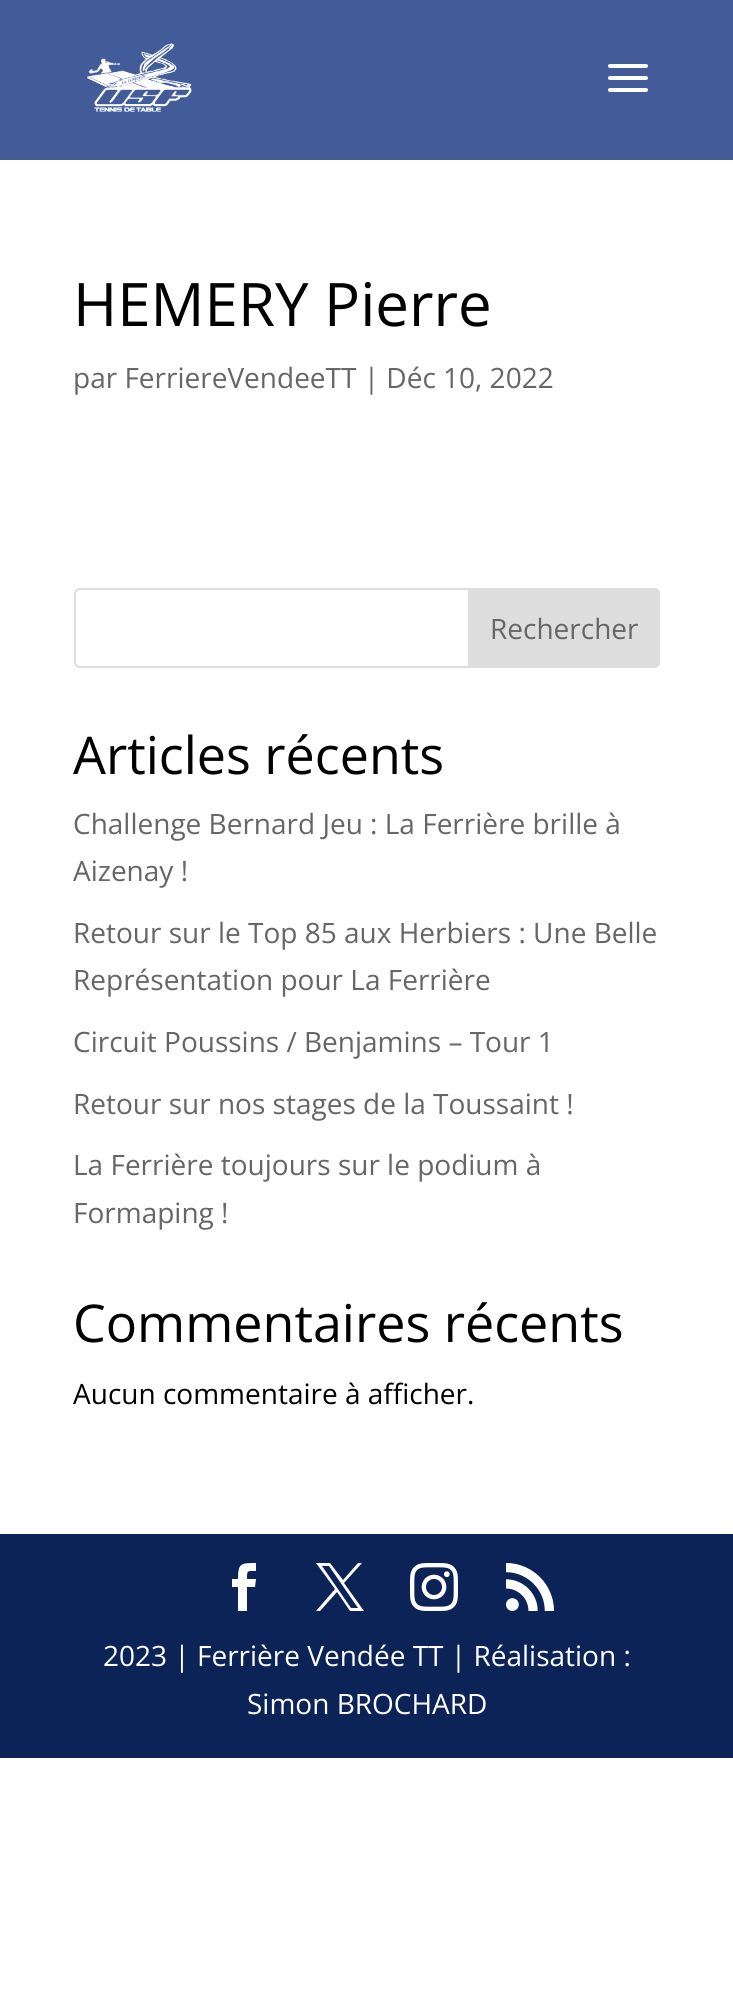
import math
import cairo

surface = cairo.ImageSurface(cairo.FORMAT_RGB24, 733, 2003)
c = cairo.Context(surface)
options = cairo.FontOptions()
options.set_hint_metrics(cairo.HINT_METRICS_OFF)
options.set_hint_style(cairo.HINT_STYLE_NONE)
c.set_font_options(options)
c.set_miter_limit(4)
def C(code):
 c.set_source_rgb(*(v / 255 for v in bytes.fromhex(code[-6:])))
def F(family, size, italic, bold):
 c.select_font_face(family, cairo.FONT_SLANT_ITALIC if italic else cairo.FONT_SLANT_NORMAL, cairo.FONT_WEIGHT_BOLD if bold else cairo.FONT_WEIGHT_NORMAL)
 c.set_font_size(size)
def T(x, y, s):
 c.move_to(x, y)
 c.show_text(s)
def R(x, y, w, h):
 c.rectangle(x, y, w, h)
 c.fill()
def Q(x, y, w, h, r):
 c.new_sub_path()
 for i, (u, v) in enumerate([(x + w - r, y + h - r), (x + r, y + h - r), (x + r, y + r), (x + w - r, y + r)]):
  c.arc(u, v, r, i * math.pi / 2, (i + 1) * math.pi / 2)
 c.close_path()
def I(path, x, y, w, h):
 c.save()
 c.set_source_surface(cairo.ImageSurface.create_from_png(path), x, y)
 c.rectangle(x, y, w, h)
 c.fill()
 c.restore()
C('ffffff')
c.paint()
C('415c99')
R(0,0,733,160)
I('1.png',87,43,105,69)
I('2.png',608,64,40,28)
F('Open Sans',60,0,0)
C('000000')
T(73,326,'HEMERY Pierre')
F('Open Sans',28,0,0)
C('666666')
T(73,388,'par FerriereVendeeTT | Déc 10, 2022')
Q(75,589,584,78,5)
C('dddddd')
c.stroke()
c.new_path()
c.move_to(469,589)
c.line_to(654,589)
c.curve_to(657,589,659,591,659,594)
c.line_to(659,662)
c.curve_to(659,665,657,667,654,667)
c.line_to(469,667)
c.close_path()
c.fill_preserve()
c.stroke()
C('666666')
T(490,639,'Rechercher')
F('Open Sans',52,0,0)
C('000000')
T(73,774,'Articles récents')
F('Open Sans',28,0,0)
C('666666')
T(73,834,'Challenge Bernard Jeu : La Ferrière brille à')
T(73,881,'Aizenay !')
T(73,943,'Retour sur le Top 85 aux Herbiers : Une Belle')
T(73,990,'Représentation pour La Ferrière')
T(73,1052,'Circuit Poussins / Benjamins – Tour 1')
T(73,1114,'Retour sur nos stages de la Toussaint !')
T(73,1175,'La Ferrière toujours sur le podium à')
T(73,1223,'Formaping !')
F('Open Sans',52,0,0)
C('000000')
T(73,1342,'Commentaires récents')
F('Open Sans',28,0,0)
T(73,1404,'Aucun commentaire à afficher.')
C('0c2357')
R(0,1534,733,224)
C('ffffff')
c.new_path()
c.move_to(238,1611)
c.line_to(247,1611)
c.line_to(247,1587)
c.line_to(255,1587)
c.line_to(256,1579)
c.line_to(247,1579)
c.curve_to(247,1570,247,1571,256,1571)
c.line_to(256,1563)
c.curve_to(241,1563,238,1563,238,1579)
c.line_to(232,1579)
c.line_to(232,1587)
c.line_to(238,1587)
c.close_path()
c.fill()
c.new_path()
c.move_to(316,1563)
c.line_to(335,1589)
c.line_to(316,1611)
c.line_to(320,1611)
c.line_to(337,1592)
c.line_to(350,1611)
c.line_to(364,1611)
c.line_to(344,1583)
c.line_to(362,1563)
c.line_to(358,1563)
c.line_to(343,1580)
c.line_to(330,1563)
c.close_path()
c.move_to(322,1566)
c.line_to(329,1566)
c.line_to(358,1608)
c.line_to(351,1608)
c.close_path()
c.fill()
I('3.png',410,1563,48,48)
I('4.png',506,1563,48,48)
T(103,1666,'2023 | Ferrière Vendée TT | Réalisation :')
T(247,1714,'Simon BROCHARD')
surface.write_to_png('o.png')
